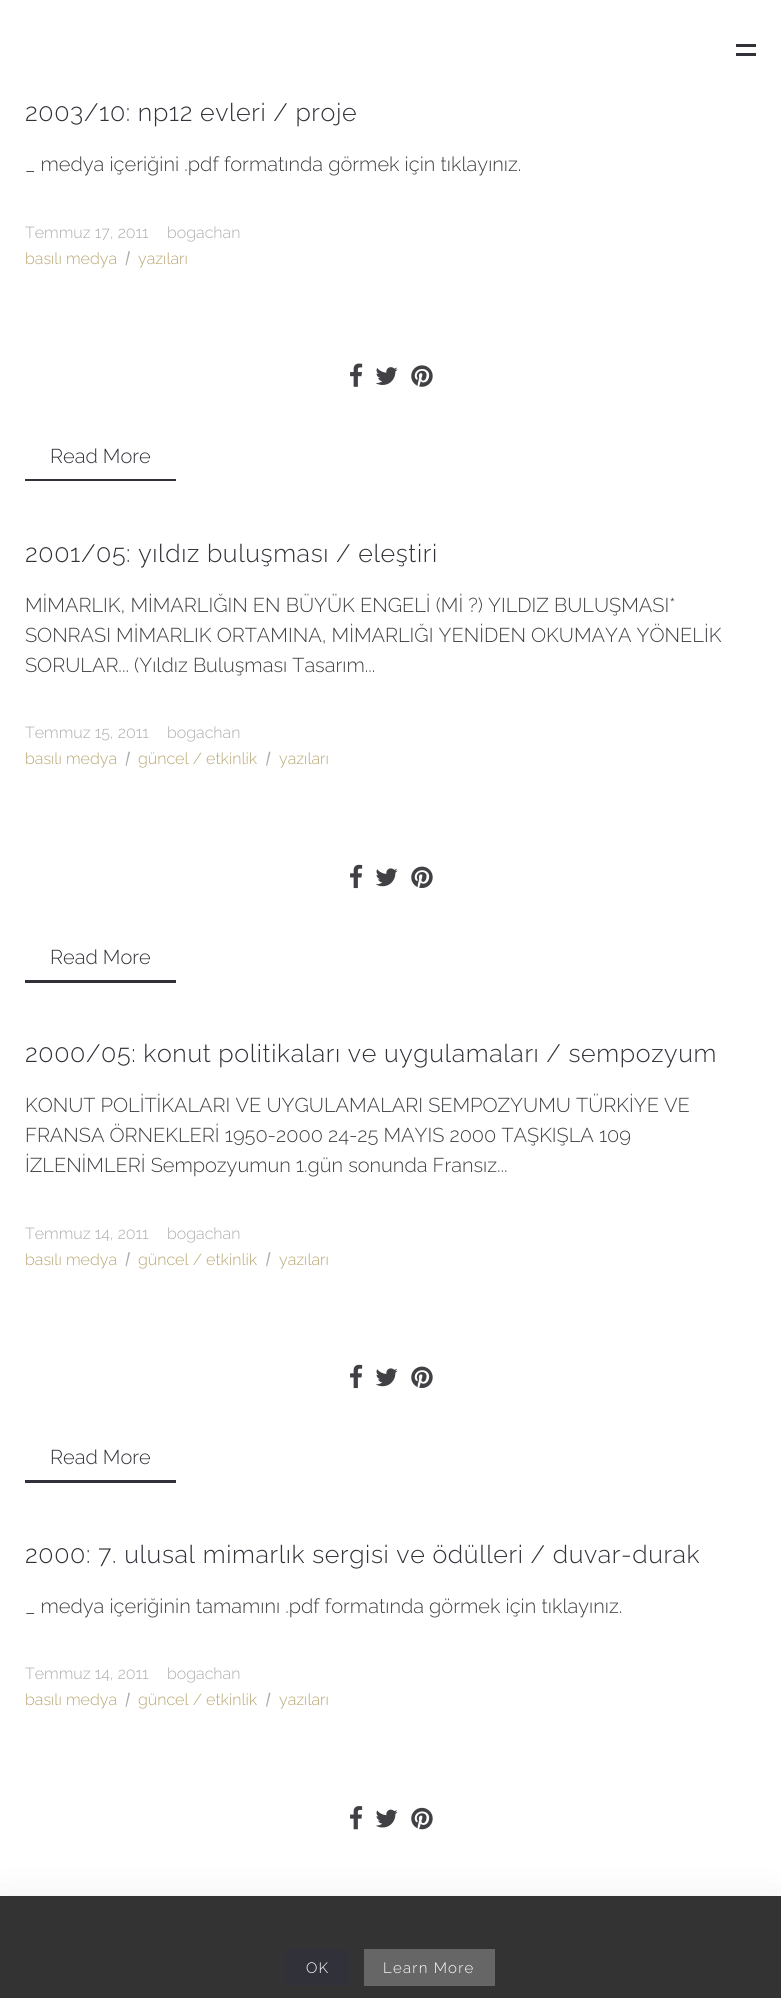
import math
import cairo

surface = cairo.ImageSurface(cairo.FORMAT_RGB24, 781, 1998)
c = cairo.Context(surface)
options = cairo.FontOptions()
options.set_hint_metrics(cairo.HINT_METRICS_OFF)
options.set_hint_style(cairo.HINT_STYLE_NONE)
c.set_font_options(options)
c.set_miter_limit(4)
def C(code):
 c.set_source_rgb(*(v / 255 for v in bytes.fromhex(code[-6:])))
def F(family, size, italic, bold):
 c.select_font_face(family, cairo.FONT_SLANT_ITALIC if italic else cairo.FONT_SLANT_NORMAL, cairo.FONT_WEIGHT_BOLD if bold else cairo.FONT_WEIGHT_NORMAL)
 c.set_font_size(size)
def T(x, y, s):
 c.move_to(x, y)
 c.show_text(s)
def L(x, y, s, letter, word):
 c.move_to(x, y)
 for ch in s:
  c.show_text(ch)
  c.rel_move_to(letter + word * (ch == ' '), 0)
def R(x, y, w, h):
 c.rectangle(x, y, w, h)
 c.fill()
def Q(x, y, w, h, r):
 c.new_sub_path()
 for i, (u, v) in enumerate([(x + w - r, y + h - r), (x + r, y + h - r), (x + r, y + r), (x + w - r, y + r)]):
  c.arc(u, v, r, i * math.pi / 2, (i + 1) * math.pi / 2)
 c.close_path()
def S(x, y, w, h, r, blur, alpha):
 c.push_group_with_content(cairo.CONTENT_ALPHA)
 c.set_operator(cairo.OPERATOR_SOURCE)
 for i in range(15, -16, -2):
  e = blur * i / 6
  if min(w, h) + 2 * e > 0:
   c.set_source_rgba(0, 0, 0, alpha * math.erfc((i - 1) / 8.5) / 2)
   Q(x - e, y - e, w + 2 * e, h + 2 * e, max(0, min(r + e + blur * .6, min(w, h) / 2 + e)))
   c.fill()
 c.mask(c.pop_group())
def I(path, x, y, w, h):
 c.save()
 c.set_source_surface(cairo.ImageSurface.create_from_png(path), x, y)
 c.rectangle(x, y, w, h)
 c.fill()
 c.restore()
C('ffffff')
c.paint()
C('313139')
R(736,53,20,3)
R(736,44,20,3)
F('Raleway Light',25,0,0)
L(25,121,'2003/10: np12 evleri / proje',.62,0)
F('Raleway Light',20,0,0)
C('414145')
T(25,171,'_ medya içeriğini .pdf formatında görmek için tıklayınız.')
F('Raleway Light',16,0,0)
C('adadad')
T(25,238,'Temmuz 17, 2011')
T(167,238,'bogachan')
C('b8a772')
T(25,264,'basılı medya')
C('adadad')
c.new_path()
c.move_to(128.5,251)
c.line_to(130,251.5)
c.line_to(126.5,265.5)
c.line_to(125.5,265)
c.close_path()
c.fill()
C('b8a772')
T(138,264,'yazıları')
I('1.png',350,363,13,24)
I('2.png',375,367,23,18)
I('3.png',411,365,22,22)
F('Raleway Light',20,0,0)
C('313139')
T(50,463,'Read More')
R(25,479,151,2)
F('Raleway Light',25,0,0)
L(25,562,'2001/05: yıldız buluşması / eleştiri',.62,0)
F('Raleway Light',20,0,0)
C('414145')
T(25,612,'MİMARLIK, MİMARLIĞIN EN BÜYÜK ENGELİ (Mİ ?) YILDIZ BULUŞMASI*')
T(25,642,'SONRASI MİMARLIK ORTAMINA, MİMARLIĞI YENİDEN OKUMAYA YÖNELİK')
T(25,672,'SORULAR... (Yıldız Buluşması Tasarım...')
F('Raleway Light',16,0,0)
C('adadad')
T(25,738,'Temmuz 15, 2011')
T(167,738,'bogachan')
C('b8a772')
T(25,764,'basılı medya')
C('adadad')
c.new_path()
c.move_to(128.5,751.5)
c.line_to(130,752)
c.line_to(126.5,766)
c.line_to(125.5,765.5)
c.close_path()
c.fill()
C('b8a772')
T(138,764,'güncel / etkinlik')
C('adadad')
c.new_path()
c.move_to(269,751.5)
c.line_to(270.5,752)
c.line_to(267,766)
c.line_to(266,765.5)
c.close_path()
c.fill()
C('b8a772')
T(279,764,'yazıları')
I('4.png',350,864,13,25)
I('5.png',375,868,23,19)
I('6.png',411,866,22,22)
F('Raleway Light',20,0,0)
C('313139')
T(50,964,'Read More')
R(25,980,151,3)
F('Raleway Light',25,0,0)
L(25,1062,'2000/05: konut politikaları ve uygulamaları / sempozyum',.62,0)
F('Raleway Light',20,0,0)
C('414145')
T(25,1112,'KONUT POLİTİKALARI VE UYGULAMALARI SEMPOZYUMU TÜRKİYE VE')
T(25,1142,'FRANSA ÖRNEKLERİ 1950-2000 24-25 MAYIS 2000 TAŞKIŞLA 109')
T(25,1172,'İZLENİMLERİ Sempozyumun 1.gün sonunda Fransız...')
F('Raleway Light',16,0,0)
C('adadad')
T(25,1239,'Temmuz 14, 2011')
T(167,1239,'bogachan')
C('b8a772')
T(25,1265,'basılı medya')
C('adadad')
c.new_path()
c.move_to(128.5,1252)
c.line_to(130,1252.5)
c.line_to(126.5,1266.5)
c.line_to(125.5,1266)
c.close_path()
c.fill()
C('b8a772')
T(138,1265,'güncel / etkinlik')
C('adadad')
c.new_path()
c.move_to(269,1252)
c.line_to(270.5,1252.5)
c.line_to(267,1266.5)
c.line_to(266,1266)
c.close_path()
c.fill()
C('b8a772')
T(279,1265,'yazıları')
I('4.png',350,1364,13,25)
I('5.png',375,1368,23,19)
I('6.png',411,1366,22,22)
F('Raleway Light',20,0,0)
C('313139')
T(50,1464,'Read More')
R(25,1480,151,3)
F('Raleway Light',25,0,0)
L(25,1563,'2000: 7. ulusal mimarlık sergisi ve ödülleri / duvar-durak',.62,0)
F('Raleway Light',20,0,0)
C('414145')
T(25,1613,'_ medya içeriğinin tamamını .pdf formatında görmek için tıklayınız.')
F('Raleway Light',16,0,0)
C('adadad')
T(25,1679,'Temmuz 14, 2011')
T(167,1679,'bogachan')
C('b8a772')
T(25,1705,'basılı medya')
C('adadad')
c.new_path()
c.move_to(128.5,1692.5)
c.line_to(130,1693)
c.line_to(126.5,1707)
c.line_to(125.5,1706.5)
c.close_path()
c.fill()
C('b8a772')
T(138,1705,'güncel / etkinlik')
C('adadad')
c.new_path()
c.move_to(269,1692.5)
c.line_to(270.5,1693)
c.line_to(267,1707)
c.line_to(266,1706.5)
c.close_path()
c.fill()
C('b8a772')
T(279,1705,'yazıları')
I('7.png',350,1806,13,24)
I('8.png',375,1809,23,19)
I('9.png',411,1807,22,23)
C('000000')
S(0,1905,781,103,0,20.5,.1)
C('333333')
R(0,1896,781,102)
C('313139')
R(286,1949,64,37)
F('Raleway Light',15,0,0)
C('ffffff')
L(306,1973,'OK',1.25,0)
C('666666')
R(364,1949,131,37)
C('ffffff')
L(383,1973,'Learn More',1.25,0)
surface.write_to_png('o.png')
